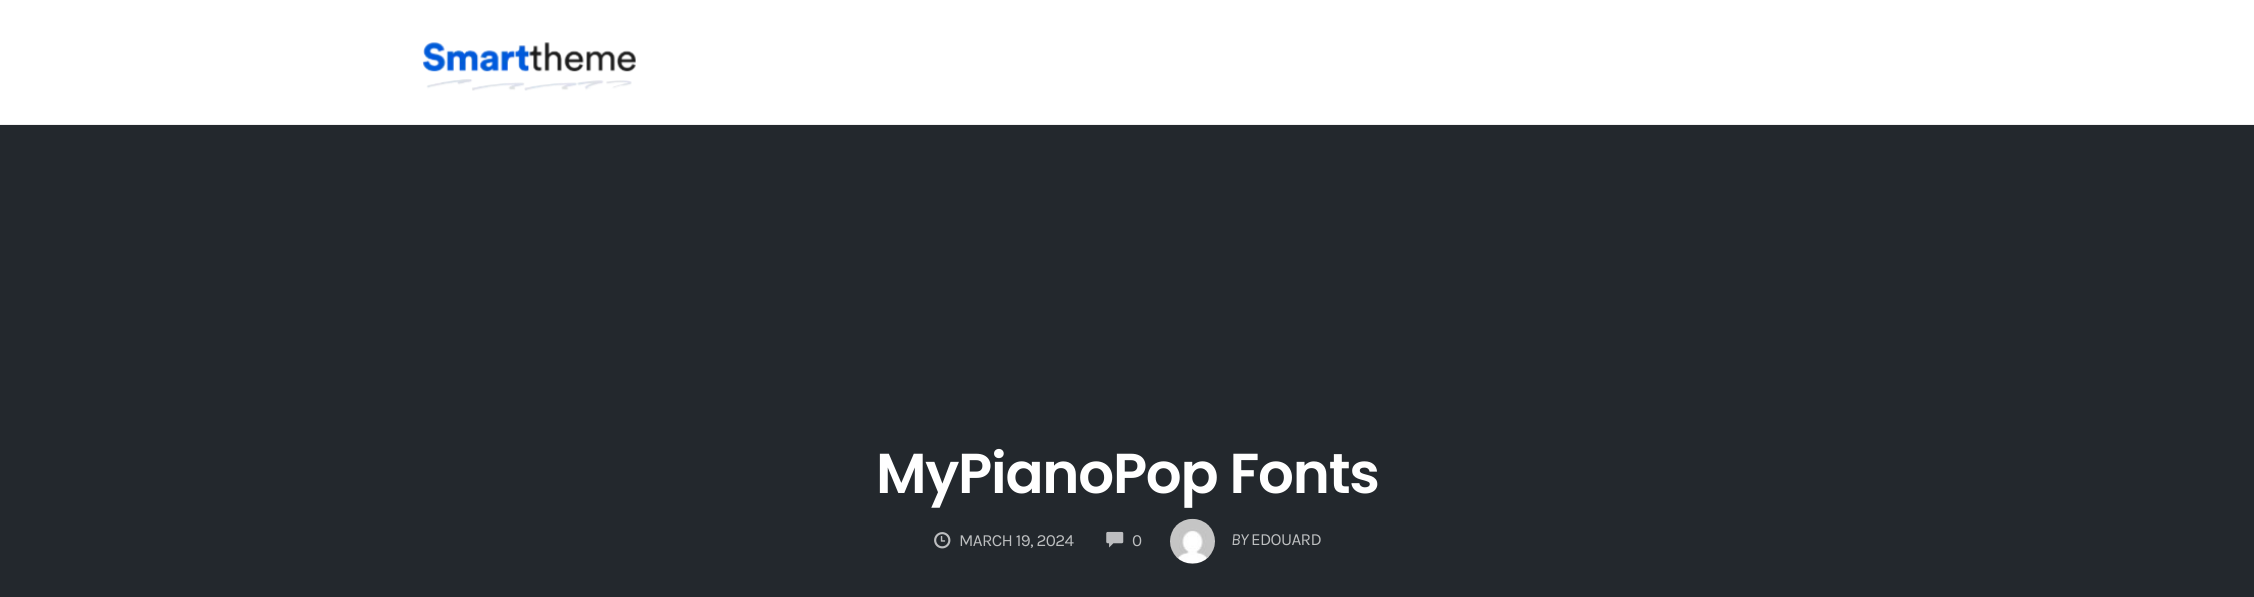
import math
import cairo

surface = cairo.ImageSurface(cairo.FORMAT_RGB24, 2254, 597)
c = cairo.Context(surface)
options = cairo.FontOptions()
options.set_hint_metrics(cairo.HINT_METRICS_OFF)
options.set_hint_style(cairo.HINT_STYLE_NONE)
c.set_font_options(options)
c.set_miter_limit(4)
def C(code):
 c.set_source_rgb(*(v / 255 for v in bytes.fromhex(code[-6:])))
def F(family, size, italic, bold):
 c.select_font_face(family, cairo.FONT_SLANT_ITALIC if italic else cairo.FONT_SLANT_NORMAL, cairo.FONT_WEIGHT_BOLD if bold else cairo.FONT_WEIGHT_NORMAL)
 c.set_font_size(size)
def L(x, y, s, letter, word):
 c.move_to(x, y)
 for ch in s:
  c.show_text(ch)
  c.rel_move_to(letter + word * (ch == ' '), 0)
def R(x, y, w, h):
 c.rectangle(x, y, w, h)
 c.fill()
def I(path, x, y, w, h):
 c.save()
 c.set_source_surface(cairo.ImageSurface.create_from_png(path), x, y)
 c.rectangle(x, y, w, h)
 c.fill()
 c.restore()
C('ffffff')
c.paint()
C('f0f0f0')
R(0,124,2254,1)
I('1.png',422,42,214,49)
C('23282d')
R(0,125,2254,472)
F('Poppins SemiBold',56.25,0,0)
C('ffffff')
L(876,493,'MyPianoPop Fonts',-1.25,0)
I('2.png',934,532,17,17)
F('Karla',17,0,0)
C('bdbfc0')
L(959,546,'MARCH 19, 2024',-.6,0)
I('3.png',1106,531,18,17)
L(1132,546,'0',-.6,0)
I('4.png',1170,518,45,46)
F('Karla',17,1,0)
L(1231,545,'BY',-.6,0)
F('Karla',17,0,0)
L(1251,545,'EDOUARD',-.6,0)
surface.write_to_png('o.png')
